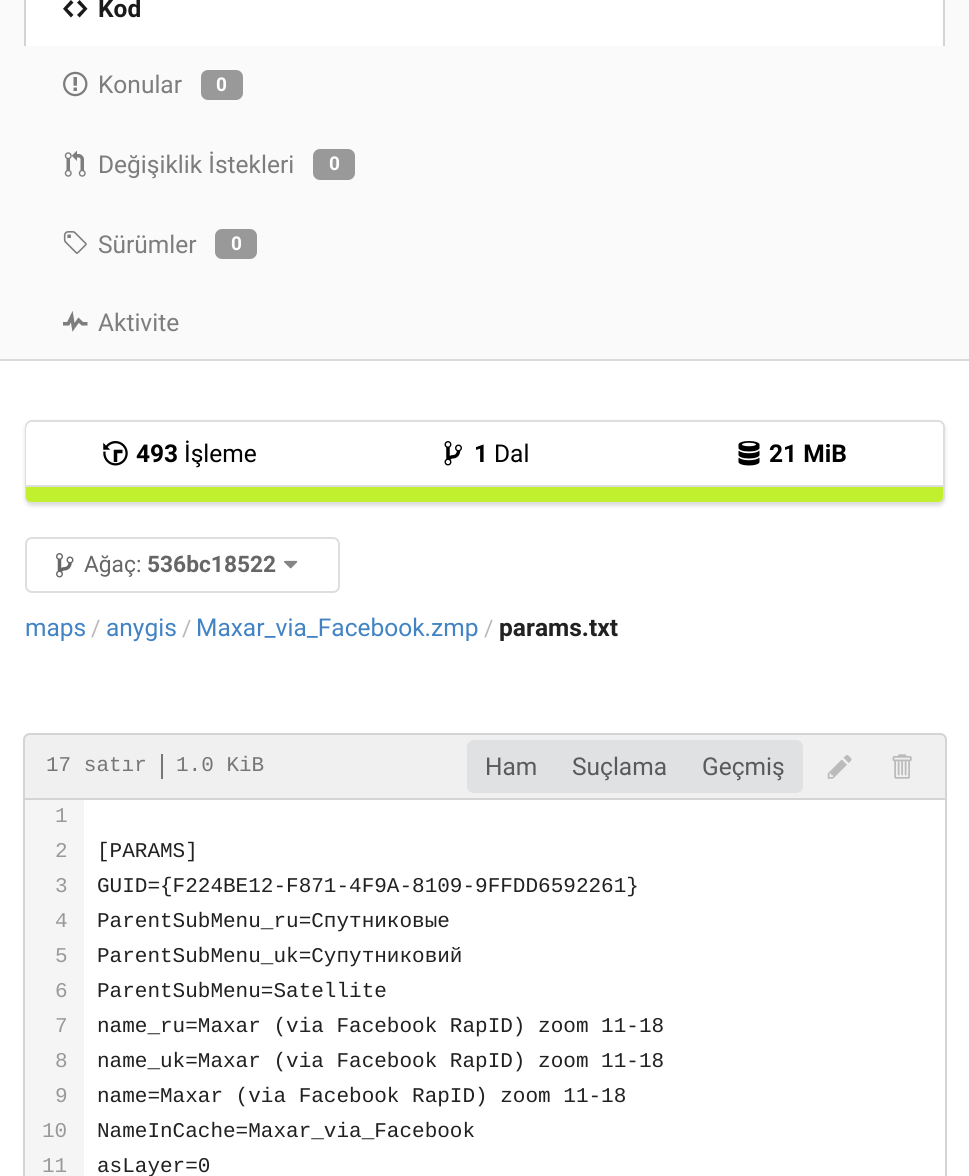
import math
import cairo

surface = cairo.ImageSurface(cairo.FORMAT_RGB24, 969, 1176)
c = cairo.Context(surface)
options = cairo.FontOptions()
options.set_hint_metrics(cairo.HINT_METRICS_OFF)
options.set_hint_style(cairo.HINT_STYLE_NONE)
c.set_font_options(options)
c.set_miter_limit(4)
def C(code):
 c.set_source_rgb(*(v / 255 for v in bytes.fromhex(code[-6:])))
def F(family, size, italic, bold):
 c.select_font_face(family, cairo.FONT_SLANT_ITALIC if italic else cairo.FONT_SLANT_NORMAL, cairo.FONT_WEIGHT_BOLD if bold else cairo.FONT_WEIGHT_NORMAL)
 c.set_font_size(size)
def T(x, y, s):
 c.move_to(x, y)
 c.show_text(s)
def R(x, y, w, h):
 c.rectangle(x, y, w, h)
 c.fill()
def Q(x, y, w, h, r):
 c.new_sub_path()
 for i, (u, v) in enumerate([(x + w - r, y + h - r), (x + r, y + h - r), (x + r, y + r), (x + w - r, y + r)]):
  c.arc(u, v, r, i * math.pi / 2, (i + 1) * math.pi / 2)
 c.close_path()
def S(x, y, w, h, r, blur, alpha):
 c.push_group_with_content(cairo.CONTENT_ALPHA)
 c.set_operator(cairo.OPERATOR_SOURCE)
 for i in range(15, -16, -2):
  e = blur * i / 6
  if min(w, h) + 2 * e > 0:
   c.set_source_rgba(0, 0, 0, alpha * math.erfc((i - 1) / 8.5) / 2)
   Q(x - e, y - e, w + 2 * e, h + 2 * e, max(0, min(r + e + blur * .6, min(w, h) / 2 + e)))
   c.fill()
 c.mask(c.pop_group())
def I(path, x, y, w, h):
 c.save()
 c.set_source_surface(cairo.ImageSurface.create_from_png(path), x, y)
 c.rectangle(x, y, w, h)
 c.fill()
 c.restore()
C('ffffff')
c.paint()
C('fafafa')
R(0,0,969,359)
C('ffffff')
R(26,0,917,46)
C('d4d4d5')
c.set_fill_rule(cairo.FILL_RULE_EVEN_ODD)
c.new_path()
c.move_to(32,-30)
c.line_to(938,-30)
c.curve_to(942,-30,945,-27,945,-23)
c.line_to(945,46)
c.line_to(24,46)
c.line_to(24,-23)
c.curve_to(24,-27,28,-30,32,-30)
c.close_path()
c.move_to(32,-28)
c.line_to(938,-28)
c.curve_to(941,-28,943,-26,943,-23)
c.line_to(943,46)
c.line_to(26,46)
c.line_to(26,-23)
c.curve_to(26,-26,29,-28,32,-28)
c.close_path()
c.fill()
I('1.png',63,0,25,18)
F('Roboto',24.5,0,1)
C('1a1a1a')
T(98,17,'Kod')
I('2.png',63,71,25,26)
F('Roboto',24.5,0,0)
C('7d7d7d')
T(98,93,'Konular')
C('999999')
Q(201,70,42,30,7)
c.fill()
F('Roboto',19,0,1)
C('ffffff')
T(216,91,'0')
I('3.png',64,151,22,26)
F('Roboto',24.5,0,0)
C('7d7d7d')
T(98,173,'Değişiklik İstekleri')
C('999999')
Q(313,149,42,31,7)
c.fill()
F('Roboto',19,0,1)
C('ffffff')
T(329,170,'0')
I('4.png',63,231,24,23)
F('Roboto',24.5,0,0)
C('7d7d7d')
T(98,253,'Sürümler')
C('999999')
Q(215,229,42,30,7)
c.fill()
F('Roboto',19,0,1)
C('ffffff')
T(231,250,'0')
I('5.png',63,311,25,21)
F('Roboto',24.5,0,0)
C('7d7d7d')
T(98,331,'Aktivite')
C('dadada')
R(0,359,969,2)
c.save()
c.new_path()
c.move_to(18,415)
c.line_to(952,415)
c.line_to(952,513)
c.line_to(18,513)
c.close_path()
c.move_to(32,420)
c.line_to(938,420)
c.curve_to(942,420,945,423,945,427)
c.line_to(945,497)
c.curve_to(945,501,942,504,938,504)
c.line_to(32,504)
c.curve_to(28,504,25,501,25,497)
c.line_to(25,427)
c.curve_to(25,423,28,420,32,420)
c.close_path()
c.clip()
C('222426')
S(25,422,920,84,7,2,.15)
c.restore()
Q(26,421,918,82,6)
c.set_source_rgba(0.133,0.141,0.149,0.15)
c.stroke()
C('ffffff')
c.new_path()
c.move_to(33,422)
c.line_to(936,422)
c.curve_to(940,422,943,425,943,429)
c.line_to(943,485)
c.line_to(26,485)
c.line_to(26,429)
c.curve_to(26,425,29,422,33,422)
c.close_path()
c.fill()
I('6.png',103,441,25,25)
F('Roboto',24.5,0,1)
C('000000')
T(136,462,'493')
F('Roboto',24.5,0,0)
T(184,462,'İşleme')
I('7.png',444,441,18,25)
F('Roboto',24.5,0,1)
T(474,462,'1')
F('Roboto',24.5,0,0)
T(494,462,'Dal')
I('8.png',738,441,22,25)
F('Roboto',24.5,0,1)
T(769,462,'21 MiB')
C('dedede')
R(26,485,917,2)
C('c1f12e')
c.new_path()
c.move_to(26,487)
c.line_to(943,487)
c.line_to(943,497)
c.curve_to(943,500,941,502,938,502)
c.line_to(31,502)
c.curve_to(28,502,26,500,26,497)
c.close_path()
c.fill()
Q(26,538,313,54,6)
C('dedede')
c.stroke()
I('9.png',56,553,18,25)
F('Roboto',22.75,0,0)
C('666666')
T(84,572,'Ağaç:')
F('Roboto',22.75,0,1)
T(147,572,'536bc18522')
I('10.png',284,560,14,9)
F('Roboto',24.5,0,0)
C('4183c4')
T(25,636,'maps')
F('Roboto',22.75,0,0)
C('b8b8b8')
T(91,636,'/')
F('Roboto',24.5,0,0)
C('4183c4')
T(106,636,'anygis')
F('Roboto',22.75,0,0)
C('b8b8b8')
T(182,636,'/')
F('Roboto',24.5,0,0)
C('4183c4')
T(196,636,'Maxar_via_Facebook.zmp')
F('Roboto',22.75,0,0)
C('b8b8b8')
T(484,636,'/')
F('Roboto',24.5,0,1)
C('212121')
T(499,636,'params.txt')
C('f0f0f0')
c.new_path()
c.move_to(30,734)
c.line_to(940,734)
c.curve_to(943.5,734,946,736.5,946,740)
c.line_to(946,799)
c.line_to(24,799)
c.line_to(24,740)
c.curve_to(24,736.5,26.5,734,30,734)
c.close_path()
c.fill_preserve()
C('d4d4d5')
c.stroke()
F('Liberation Mono',21,0,0)
C('767676')
T(46,771,'17 satır')
R(161,754,2,25)
T(176,771,'1.0 KiB')
C('e0e1e2')
c.new_path()
c.move_to(474,740)
c.line_to(555,740)
c.line_to(555,793)
c.line_to(474,793)
c.curve_to(470,793,467,790,467,786)
c.line_to(467,747)
c.curve_to(467,743,470,740,474,740)
c.close_path()
c.fill()
F('Roboto',24.5,0,0)
C('5a5a5a')
T(485,775,'Ham')
C('e0e1e2')
R(555,740,129,53)
C('5a5a5a')
T(572,775,'Suçlama')
C('e0e1e2')
c.new_path()
c.move_to(684,740)
c.line_to(796,740)
c.curve_to(800,740,803,743,803,747)
c.line_to(803,786)
c.curve_to(803,790,800,793,796,793)
c.line_to(684,793)
c.close_path()
c.fill()
C('5a5a5a')
T(702,775,'Geçmiş')
I('11.png',827,755,25,24)
I('12.png',892,754,20,25)
C('d4d4d5')
R(945,800,2,376)
R(23,800,2,376)
C('f5f5f5')
R(25,800,59,376)
F('Liberation Mono',21,0,0)
C('999999')
T(55,822,'1')
T(55,857,'2')
T(55,892,'3')
T(55,927,'4')
T(55,962,'5')
T(55,997,'6')
T(55,1032,'7')
T(55,1067,'8')
T(55,1102,'9')
T(42,1137,'10')
T(42,1172,'11')
C('212121')
T(97,857,'[PARAMS]')
T(97,892,'GUID={F224BE12-F871-4F9A-8109-9FFDD6592261}')
T(97,927,'ParentSubMenu_ru=Спутниковые')
T(97,962,'ParentSubMenu_uk=Супутниковий')
T(97,997,'ParentSubMenu=Satellite')
T(97,1032,'name_ru=Maxar (via Facebook RapID) zoom 11-18')
T(97,1067,'name_uk=Maxar (via Facebook RapID) zoom 11-18')
T(97,1102,'name=Maxar (via Facebook RapID) zoom 11-18')
T(97,1137,'NameInCache=Maxar_via_Facebook')
T(97,1172,'asLayer=0')
surface.write_to_png('o.png')
